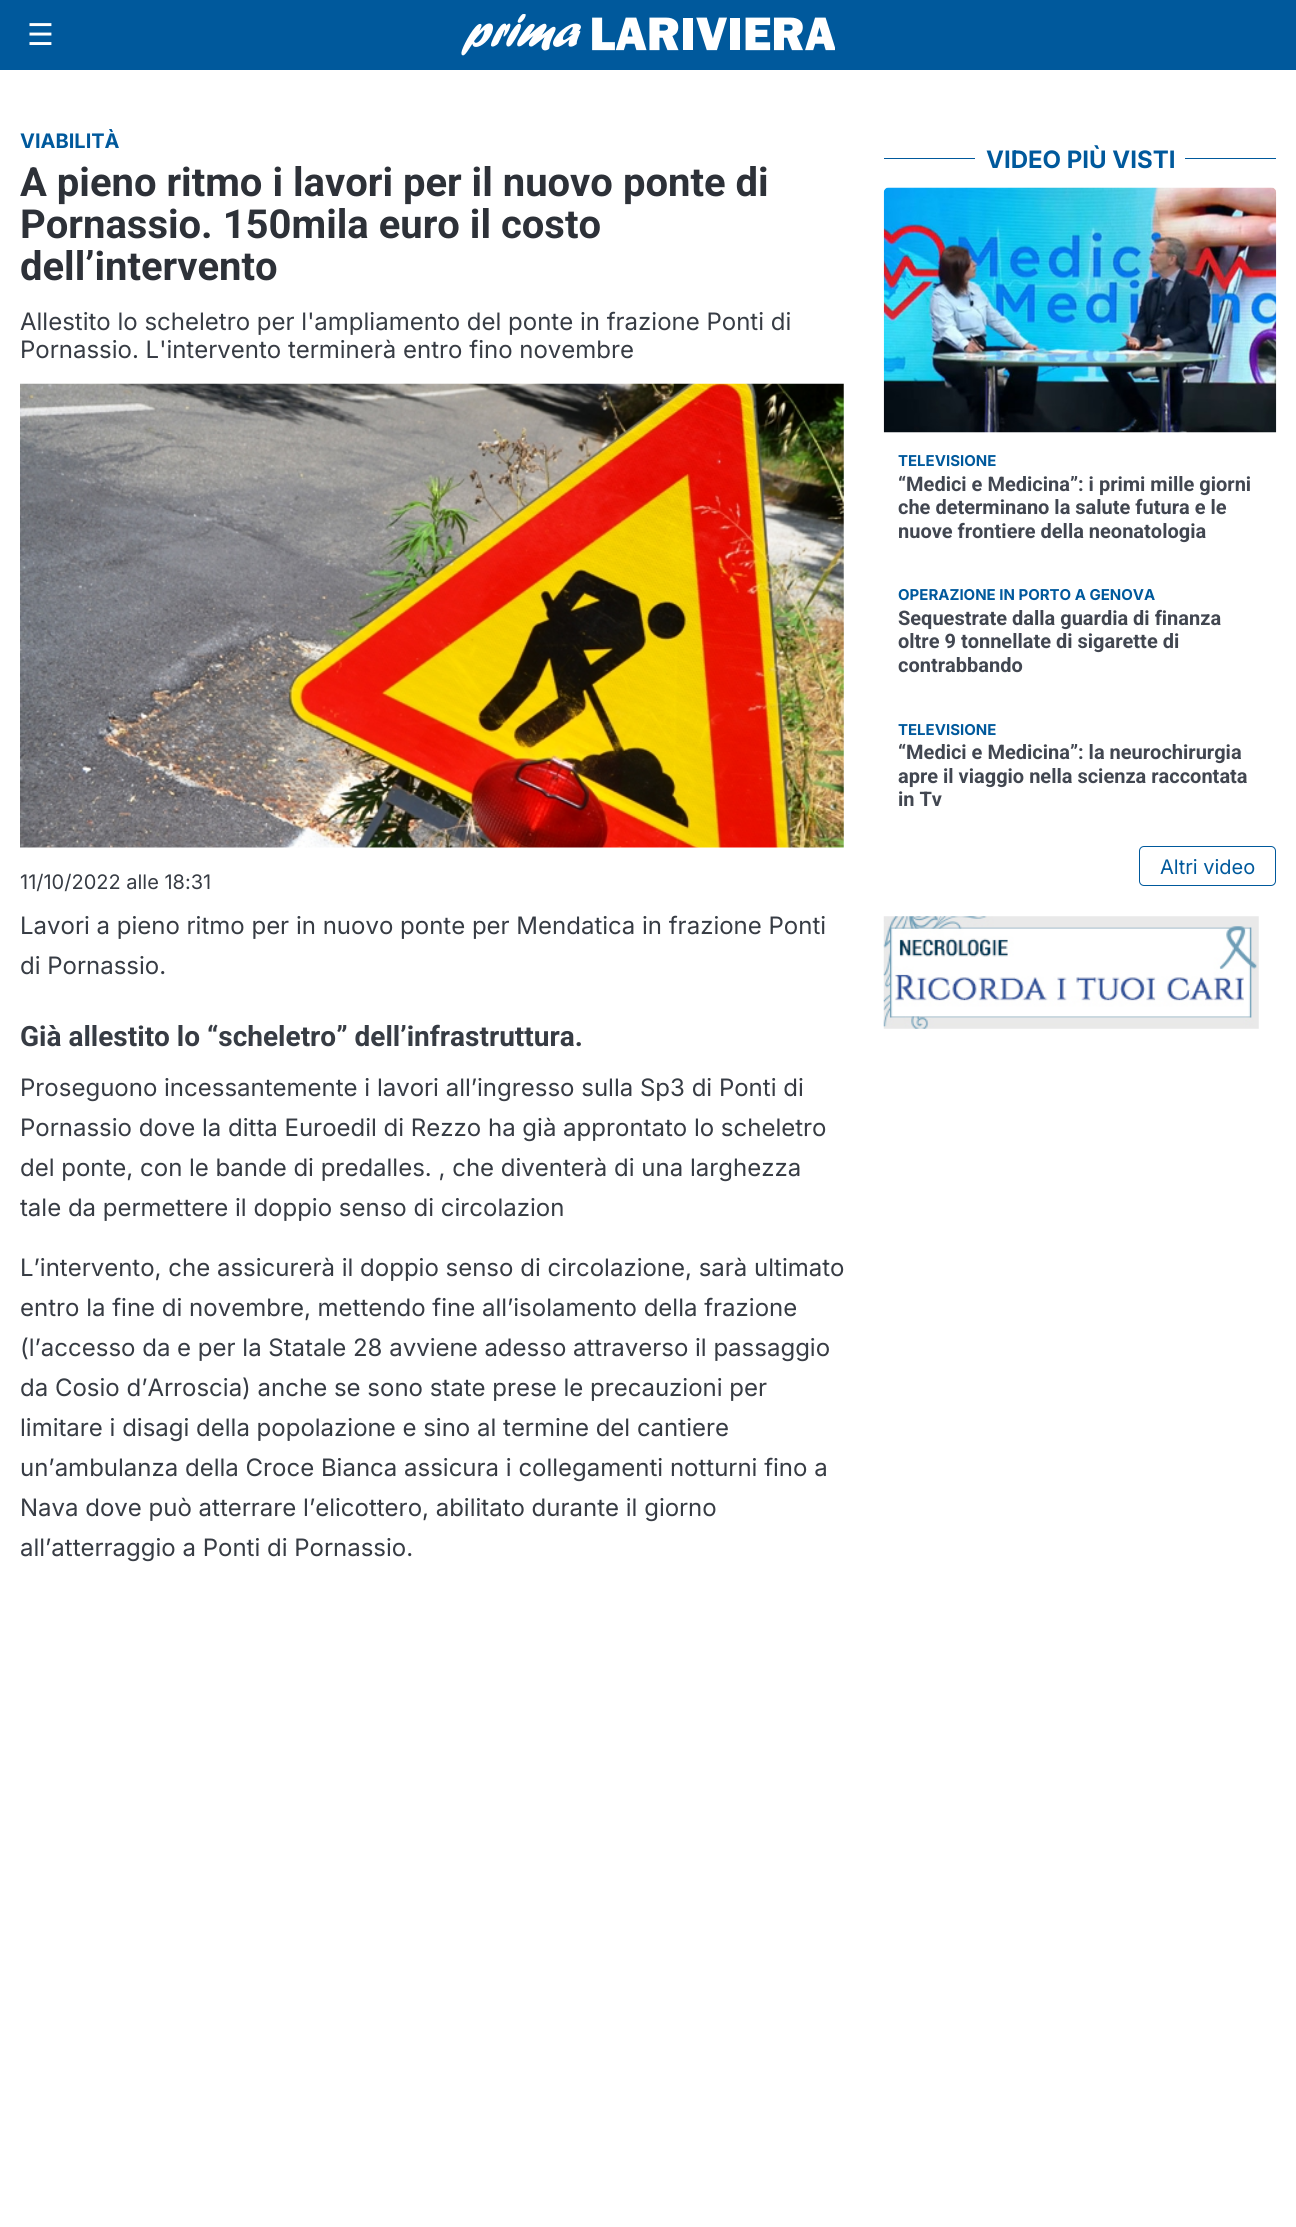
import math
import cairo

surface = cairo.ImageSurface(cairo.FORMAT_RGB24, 1296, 2227)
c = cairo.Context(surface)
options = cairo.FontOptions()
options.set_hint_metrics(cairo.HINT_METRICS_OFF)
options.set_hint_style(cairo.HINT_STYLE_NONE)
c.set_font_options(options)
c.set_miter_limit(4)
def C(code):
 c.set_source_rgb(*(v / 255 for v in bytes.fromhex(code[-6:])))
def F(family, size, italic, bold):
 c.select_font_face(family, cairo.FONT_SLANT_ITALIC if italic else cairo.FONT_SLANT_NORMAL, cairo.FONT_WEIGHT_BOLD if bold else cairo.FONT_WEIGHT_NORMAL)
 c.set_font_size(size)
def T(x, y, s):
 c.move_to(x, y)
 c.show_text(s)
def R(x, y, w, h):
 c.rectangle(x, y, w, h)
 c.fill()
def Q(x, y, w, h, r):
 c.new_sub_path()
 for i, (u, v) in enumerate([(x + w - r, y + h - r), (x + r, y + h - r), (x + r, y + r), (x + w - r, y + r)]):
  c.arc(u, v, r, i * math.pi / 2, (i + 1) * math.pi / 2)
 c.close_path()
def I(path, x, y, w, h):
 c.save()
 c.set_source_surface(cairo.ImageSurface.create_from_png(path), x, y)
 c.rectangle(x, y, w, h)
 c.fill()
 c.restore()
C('ffffff')
c.paint()
C('00599c')
R(0,0,1296,70)
F('DejaVu Sans',30,0,0)
C('ffffff')
T(27,45,'☰')
I('1.png',461,14,374,42)
F('Inter',20,0,1)
C('00599c')
T(20,148,'VIABILITÀ')
F('Roboto',40,0,1)
C('2d3138')
T(20,196,'A pieno ritmo i lavori per il nuovo ponte di')
T(20,238,'Pornassio. 150mila euro il costo')
T(20,280,'dell’intervento')
F('Inter',24,0,0)
C('373c44')
T(20,330,'Allestito lo scheletro per l\'ampliamento del ponte in frazione Ponti di')
T(20,358,'Pornassio. L\'intervento terminerà entro fino novembre')
I('2.png',20,383,824,465)
F('Inter',20,0,0)
T(20,889,'11/10/2022 alle 18:31')
F('Inter',24,0,0)
T(20,934,'Lavori a pieno ritmo per in nuovo ponte per Mendatica in frazione Ponti')
T(20,974,'di Pornassio.')
F('Roboto',28,0,1)
T(20,1046,'Già allestito lo “scheletro” dell’infrastruttura.')
F('Inter',24,0,0)
T(20,1096,'Proseguono incessantemente i lavori all’ingresso sulla Sp3 di Ponti di')
T(20,1136,'Pornassio dove la ditta Euroedil di Rezzo ha già approntato lo scheletro')
T(20,1176,'del ponte, con le bande di predalles. , che diventerà di una larghezza')
T(20,1216,'tale da permettere il doppio senso di circolazion')
T(20,1276,'L’intervento, che assicurerà il doppio senso di circolazione, sarà ultimato')
T(20,1316,'entro la fine di novembre, mettendo fine all’isolamento della frazione')
T(20,1356,'(l’accesso da e per la Statale 28 avviene adesso attraverso il passaggio')
T(20,1396,'da Cosio d’Arroscia) anche se sono state prese le precauzioni per')
T(20,1436,'limitare i disagi della popolazione e sino al termine del cantiere')
T(20,1476,'un’ambulanza della Croce Bianca assicura i collegamenti notturni fino a')
T(20,1516,'Nava dove può atterrare l’elicottero, abilitato durante il giorno')
T(20,1556,'all’atterraggio a Ponti di Pornassio.')
C('00599c')
R(884,158,392,1)
C('ffffff')
R(975,158,210,1)
F('Inter',24,0,1)
C('00599c')
T(986,168,'VIDEO PIÙ VISTI')
I('3.png',883,187,394,246)
F('Inter',15,0,1)
T(898,466,'TELEVISIONE')
F('Roboto',20,0,1)
C('424751')
T(898,491,'“Medici e Medicina”: i primi mille giorni')
T(898,514,'che determinano la salute futura e le')
T(898,538,'nuove frontiere della neonatologia')
F('Inter',15,0,1)
C('00599c')
T(898,600,'OPERAZIONE IN PORTO A GENOVA')
F('Roboto',20,0,1)
C('424751')
T(898,625,'Sequestrate dalla guardia di finanza')
T(898,648,'oltre 9 tonnellate di sigarette di')
T(898,672,'contrabbando')
F('Inter',15,0,1)
C('00599c')
T(898,735,'TELEVISIONE')
F('Roboto',20,0,1)
C('424751')
T(898,759,'“Medici e Medicina”: la neurochirurgia')
T(898,783,'apre il viaggio nella scienza raccontata')
T(898,806,'in Tv')
Q(1139.5,846.5,136,39,4.5)
C('00599c')
c.set_line_width(1)
c.stroke()
F('Inter',20,0,0)
T(1160,874,'Altri video')
I('4.png',883,916,376,113)
surface.write_to_png('o.png')
